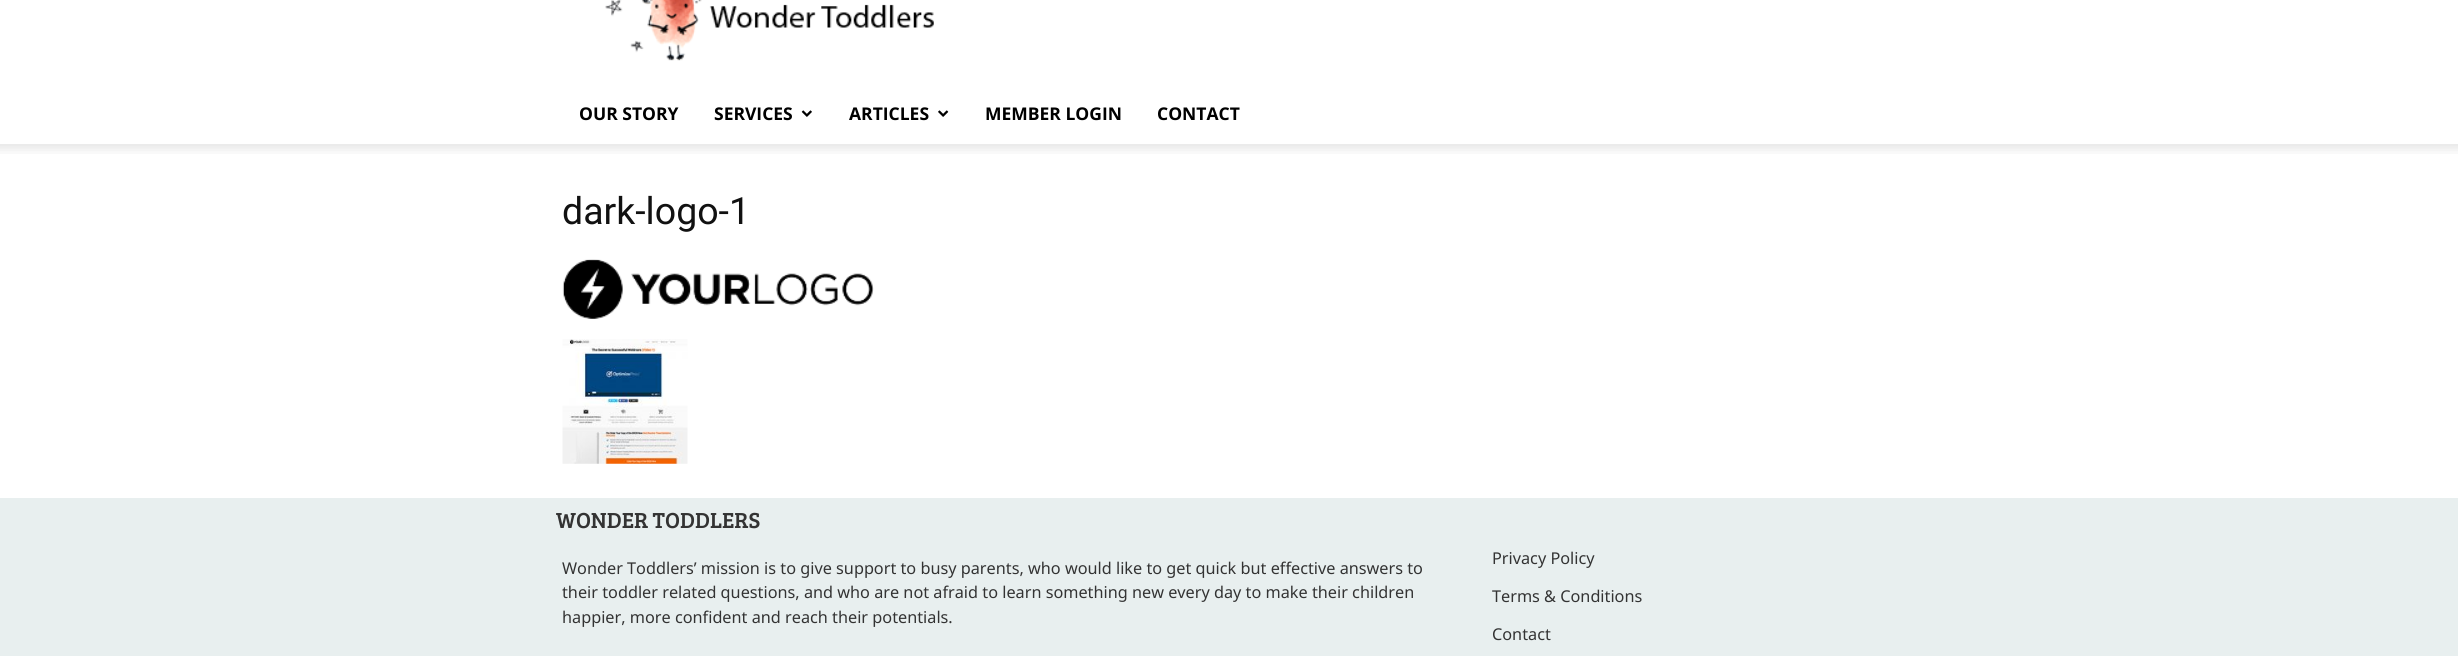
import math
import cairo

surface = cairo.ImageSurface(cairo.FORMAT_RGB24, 2458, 656)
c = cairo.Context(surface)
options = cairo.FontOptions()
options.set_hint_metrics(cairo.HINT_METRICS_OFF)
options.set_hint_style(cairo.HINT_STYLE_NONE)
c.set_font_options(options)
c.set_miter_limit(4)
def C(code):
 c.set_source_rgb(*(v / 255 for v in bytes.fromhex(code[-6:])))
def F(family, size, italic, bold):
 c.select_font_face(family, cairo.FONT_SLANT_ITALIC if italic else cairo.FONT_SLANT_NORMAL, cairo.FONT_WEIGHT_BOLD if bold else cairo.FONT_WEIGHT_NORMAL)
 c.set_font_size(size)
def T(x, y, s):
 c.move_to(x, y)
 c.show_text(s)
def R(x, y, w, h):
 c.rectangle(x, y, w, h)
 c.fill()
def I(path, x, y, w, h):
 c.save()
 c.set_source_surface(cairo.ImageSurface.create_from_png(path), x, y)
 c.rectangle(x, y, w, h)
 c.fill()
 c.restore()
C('ffffff')
c.paint()
I('1.png',605,0,329,61)
F('Open Sans',17.5,0,1)
C('000000')
T(579,120,'OUR STORY')
T(714,120,'SERVICES')
I('2.png',801,110,11,7)
T(849,120,'ARTICLES')
I('3.png',938,110,11,7)
T(985,120,'MEMBER LOGIN')
T(1157,120,'CONTACT')
I('4.png',0,144,2458,10)
F('Roboto',37.5,0,0)
C('111111')
T(562,224,'dark-logo-1')
I('5.png',562,259,312,60)
I('6.png',562,339,126,125)
C('e8efef')
R(0,498,2458,158)
F('Bree Serif',22.5,0,0)
C('333333')
T(556,528,'WONDER TODDLERS')
F('Noto Sans',16.25,0,0)
T(562,574,'Wonder Toddlers’ mission is to give support to busy parents, who would like to get quick but effective answers to')
T(562,598,'their toddler related questions, and who are not afraid to learn something new every day to make their children')
T(562,623,'happier, more confident and reach their potentials.')
T(1492,564,'Privacy Policy')
T(1492,602,'Terms & Conditions')
T(1492,640,'Contact')
surface.write_to_png('o.png')
